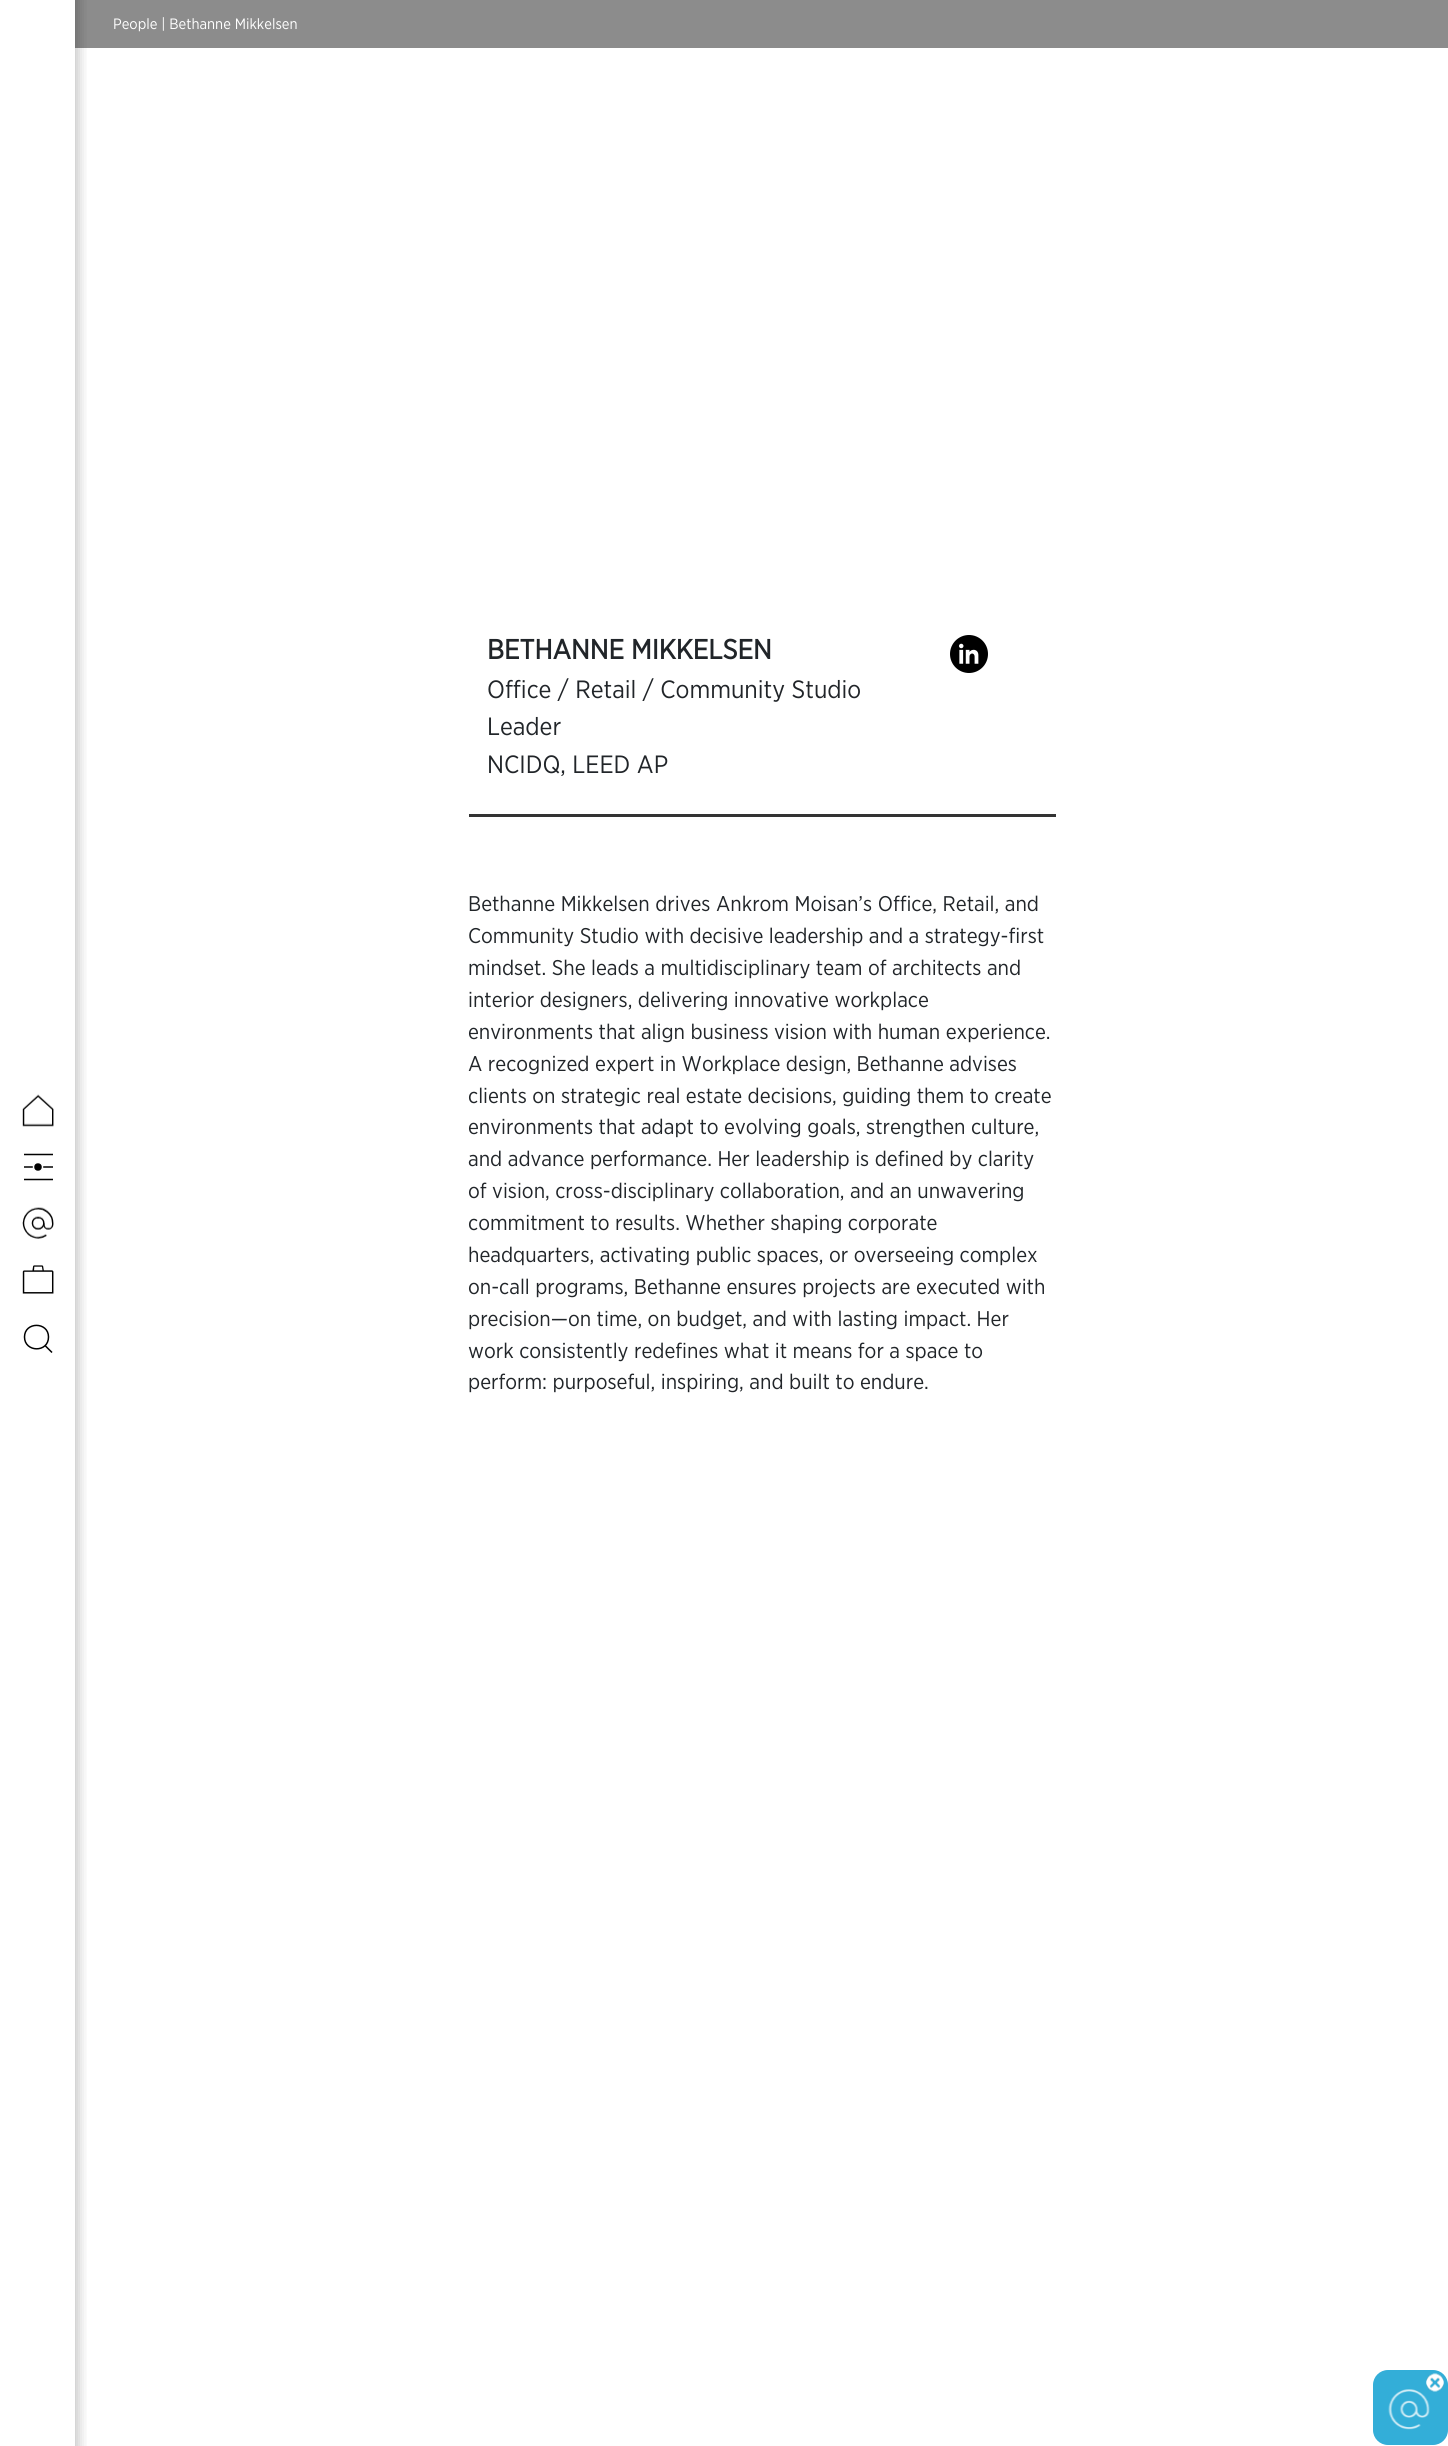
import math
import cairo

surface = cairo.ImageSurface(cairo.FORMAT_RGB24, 1448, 2446)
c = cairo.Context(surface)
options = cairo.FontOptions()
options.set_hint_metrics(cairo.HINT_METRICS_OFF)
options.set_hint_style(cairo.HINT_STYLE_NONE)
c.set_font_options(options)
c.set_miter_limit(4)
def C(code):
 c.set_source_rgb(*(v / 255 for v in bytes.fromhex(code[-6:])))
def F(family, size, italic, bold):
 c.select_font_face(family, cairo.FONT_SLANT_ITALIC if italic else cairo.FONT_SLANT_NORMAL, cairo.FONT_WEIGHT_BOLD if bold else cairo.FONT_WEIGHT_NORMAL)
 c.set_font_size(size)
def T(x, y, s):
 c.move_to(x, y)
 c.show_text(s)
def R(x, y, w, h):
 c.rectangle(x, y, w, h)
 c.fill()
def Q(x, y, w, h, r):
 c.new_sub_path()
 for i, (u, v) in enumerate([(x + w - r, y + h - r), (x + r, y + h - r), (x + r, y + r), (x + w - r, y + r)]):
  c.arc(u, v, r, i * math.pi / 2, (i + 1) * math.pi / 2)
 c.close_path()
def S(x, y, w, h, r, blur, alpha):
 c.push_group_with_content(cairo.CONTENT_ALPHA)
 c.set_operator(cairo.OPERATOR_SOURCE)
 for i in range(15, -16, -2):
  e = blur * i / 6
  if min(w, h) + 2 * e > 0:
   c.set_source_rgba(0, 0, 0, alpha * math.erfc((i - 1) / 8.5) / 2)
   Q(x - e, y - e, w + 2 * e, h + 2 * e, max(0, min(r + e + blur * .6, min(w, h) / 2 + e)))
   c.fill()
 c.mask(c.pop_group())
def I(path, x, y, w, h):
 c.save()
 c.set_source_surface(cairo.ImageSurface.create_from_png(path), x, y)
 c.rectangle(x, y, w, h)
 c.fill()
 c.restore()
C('ffffff')
c.paint()
C('8c8c8c')
R(75,0,1373,48)
c.save()
c.rectangle(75,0,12,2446)
c.clip()
C('000000')
S(-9,-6,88,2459,0,6,.22)
c.restore()
I('1.png',22,1094,32,33)
c.new_path()
c.move_to(24,1179.5)
c.line_to(53,1179.5)
C('000000')
c.set_line_width(1.5)
c.stroke()
C('404040')
R(24,1166,29,2)
c.new_path()
c.move_to(24,1154.5)
c.line_to(53,1154.5)
C('000000')
c.stroke()
c.arc(38,1167,4.5,0,2 * math.pi)
c.fill_preserve()
C('ffffff')
c.stroke()
I('2.png',22,1207,32,32)
I('3.png',22,1265,32,29)
c.new_path()
c.move_to(24.5,1337)
c.curve_to(24.5,1321.5,48.5,1321.5,48.5,1337)
c.curve_to(48.5,1353,24.5,1352.5,24.5,1337)
c.close_path()
c.move_to(45,1345.5)
c.line_to(52,1352.5)
C('000000')
c.stroke()
F('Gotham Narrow',15,0,0)
C('ffffff')
T(113,29,'People | Bethanne Mikkelsen')
F('Gotham Narrow',27.5,0,1)
C('212529')
T(487,659,'BETHANNE MIKKELSEN')
C('000000')
c.new_path()
c.arc(969,654,19,0,2 * math.pi)
c.fill()
I('4.png',959,643,20,21)
F('Gotham Narrow',25,0,0)
C('212529')
T(487,698,'Office / Retail / Community Studio')
T(487,735,'Leader')
T(487,773,'NCIDQ, LEED AP')
C('333333')
R(469,814,587,3)
F('Gotham Narrow',21.25,0,0)
C('212529')
T(468,911,'Bethanne Mikkelsen drives Ankrom Moisan’s Office, Retail, and')
T(468,943,'Community Studio with decisive leadership and a strategy-first')
T(468,975,'mindset. She leads a multidisciplinary team of architects and')
T(468,1007,'interior designers, delivering innovative workplace')
T(468,1039,'environments that align business vision with human experience.')
T(468,1071,'A recognized expert in Workplace design, Bethanne advises')
T(468,1103,'clients on strategic real estate decisions, guiding them to create')
T(468,1134,'environments that adapt to evolving goals, strengthen culture,')
T(468,1166,'and advance performance. Her leadership is defined by clarity')
T(468,1198,'of vision, cross-disciplinary collaboration, and an unwavering')
T(468,1230,'commitment to results. Whether shaping corporate')
T(468,1262,'headquarters, activating public spaces, or overseeing complex')
T(468,1294,'on-call programs, Bethanne ensures projects are executed with')
T(468,1326,'precision—on time, on budget, and with lasting impact. Her')
T(468,1358,'work consistently redefines what it means for a space to')
T(468,1389,'perform: purposeful, inspiring, and built to endure.')
C('33aed8')
Q(1373,2370,75,75,15)
c.fill()
I('5.png',1388,2389,42,41)
I('6.png',1426,2373,18,19)
surface.write_to_png('o.png')
